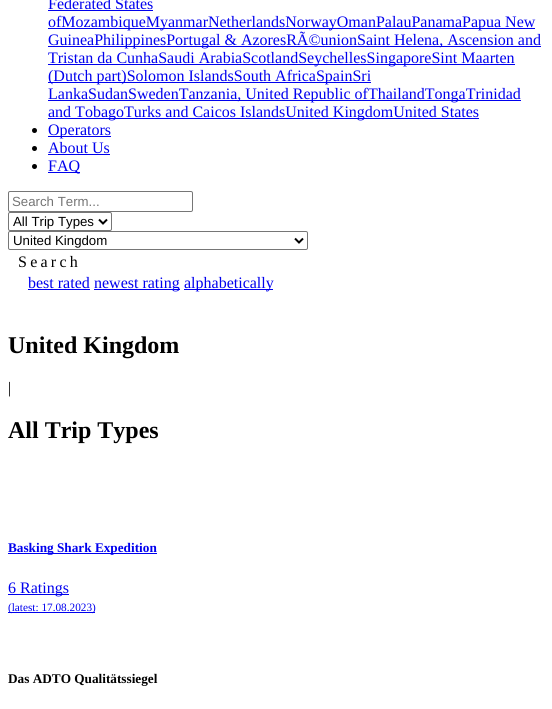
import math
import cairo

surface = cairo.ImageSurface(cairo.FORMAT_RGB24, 552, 709)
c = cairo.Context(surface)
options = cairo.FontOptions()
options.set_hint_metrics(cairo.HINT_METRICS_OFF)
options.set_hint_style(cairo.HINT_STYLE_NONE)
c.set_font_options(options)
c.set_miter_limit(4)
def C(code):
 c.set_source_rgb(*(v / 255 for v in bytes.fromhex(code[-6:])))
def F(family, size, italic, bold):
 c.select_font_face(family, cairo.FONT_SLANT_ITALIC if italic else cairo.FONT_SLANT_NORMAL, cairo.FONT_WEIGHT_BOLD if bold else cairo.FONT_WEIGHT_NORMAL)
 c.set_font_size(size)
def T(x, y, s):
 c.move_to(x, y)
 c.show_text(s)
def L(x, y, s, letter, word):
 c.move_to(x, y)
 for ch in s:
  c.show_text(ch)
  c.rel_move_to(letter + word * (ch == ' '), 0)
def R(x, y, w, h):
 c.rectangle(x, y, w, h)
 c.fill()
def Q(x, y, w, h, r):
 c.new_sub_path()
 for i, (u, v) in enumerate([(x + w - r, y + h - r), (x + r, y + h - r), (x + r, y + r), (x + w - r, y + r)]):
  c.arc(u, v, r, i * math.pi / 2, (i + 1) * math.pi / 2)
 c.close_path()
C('ffffff')
c.paint()
F('Liberation Serif',16,0,0)
C('0000ee')
T(48,9,'Federated States')
R(48,10,105,1)
R(48,28,363,1)
T(48,27,'ofMozambiqueMyanmarNetherlandsNorwayOmanPalauPanama')
R(411,28,124,1)
T(462,27,'Papua New')
R(48,46,493,1)
T(48,45,'GuineaPhilippinesPortugal & AzoresRÃ©unionSaint Helena, Ascension and')
R(48,64,467,1)
T(48,63,'Tristan da CunhaSaudi ArabiaScotlandSeychellesSingaporeSint Maarten')
R(48,82,304,1)
T(48,81,'(Dutch part)Solomon IslandsSouth AfricaSpainSri')
R(48,100,473,1)
T(48,99,'LankaSudanSwedenTanzania, United Republic ofThailandTongaTrinidad')
R(352,82,19,1)
R(48,118,345,1)
T(48,117,'and TobagoTurks and Caicos IslandsUnited KingdomUnited States')
R(393,118,86,1)
C('000000')
c.new_path()
c.arc(34.5,130.5,2.5,0,2 * math.pi)
c.fill()
C('0000ee')
R(48,136,63,1)
T(48,135,'Operators')
C('000000')
c.new_path()
c.arc(34.5,148.5,2.5,0,2 * math.pi)
c.fill()
C('0000ee')
T(48,153,'About Us')
R(48,154,62,1)
C('000000')
c.new_path()
c.arc(34.5,166.5,2.5,0,2 * math.pi)
c.fill()
C('0000ee')
R(48,172,32,1)
T(48,171,'FAQ')
Q(8.5,191.5,184,20,1.5)
C('767676')
c.set_line_width(1)
c.stroke()
F('Liberation Sans',13.25,0,0)
C('757575')
T(12,206,'Search Term...')
Q(8.5,212.5,103,18,1.5)
C('767676')
c.stroke()
c.new_path()
c.move_to(99,219.5)
c.line_to(103,223.5)
c.line_to(107,219.5)
C('000000')
c.set_line_width(2)
c.stroke()
T(13,226,'All Trip Types')
Q(8.5,231.5,299,18,1.5)
C('767676')
c.set_line_width(1)
c.stroke()
c.new_path()
c.move_to(295,238.5)
c.line_to(299,242.5)
c.line_to(303,238.5)
C('000000')
c.set_line_width(2)
c.stroke()
T(13,245,'United Kingdom')
F('Liberation Serif',16,0,0)
L(18,267,'Search',3.25,0)
C('0000ee')
T(28,288,'best rated')
R(28,289,62,1)
R(94,289,86,1)
T(94,288,'newest rating')
R(184,289,89,1)
T(184,288,'alphabetically')
F('Liberation Serif',24,0,1)
C('000000')
T(8,353,'United Kingdom')
F('Liberation Serif',16,0,0)
T(8,393,'|')
F('Liberation Serif',24,0,1)
T(8,438,'All Trip Types')
C('0000ee')
R(8,553,149,1)
F('Liberation Serif',13.25,0,1)
T(8,552,'Basking Shark Expedition')
R(8,594,61,1)
F('Liberation Serif',16,0,0)
T(8,593,'6 Ratings')
R(8,612,87,1)
F('Liberation Serif',11.25,0,0)
T(8,611,'(latest: 17.08.2023)')
F('Liberation Serif',13.25,0,1)
C('000000')
T(8,683,'Das ADTO Qualitätssiegel')
surface.write_to_png('o.png')
